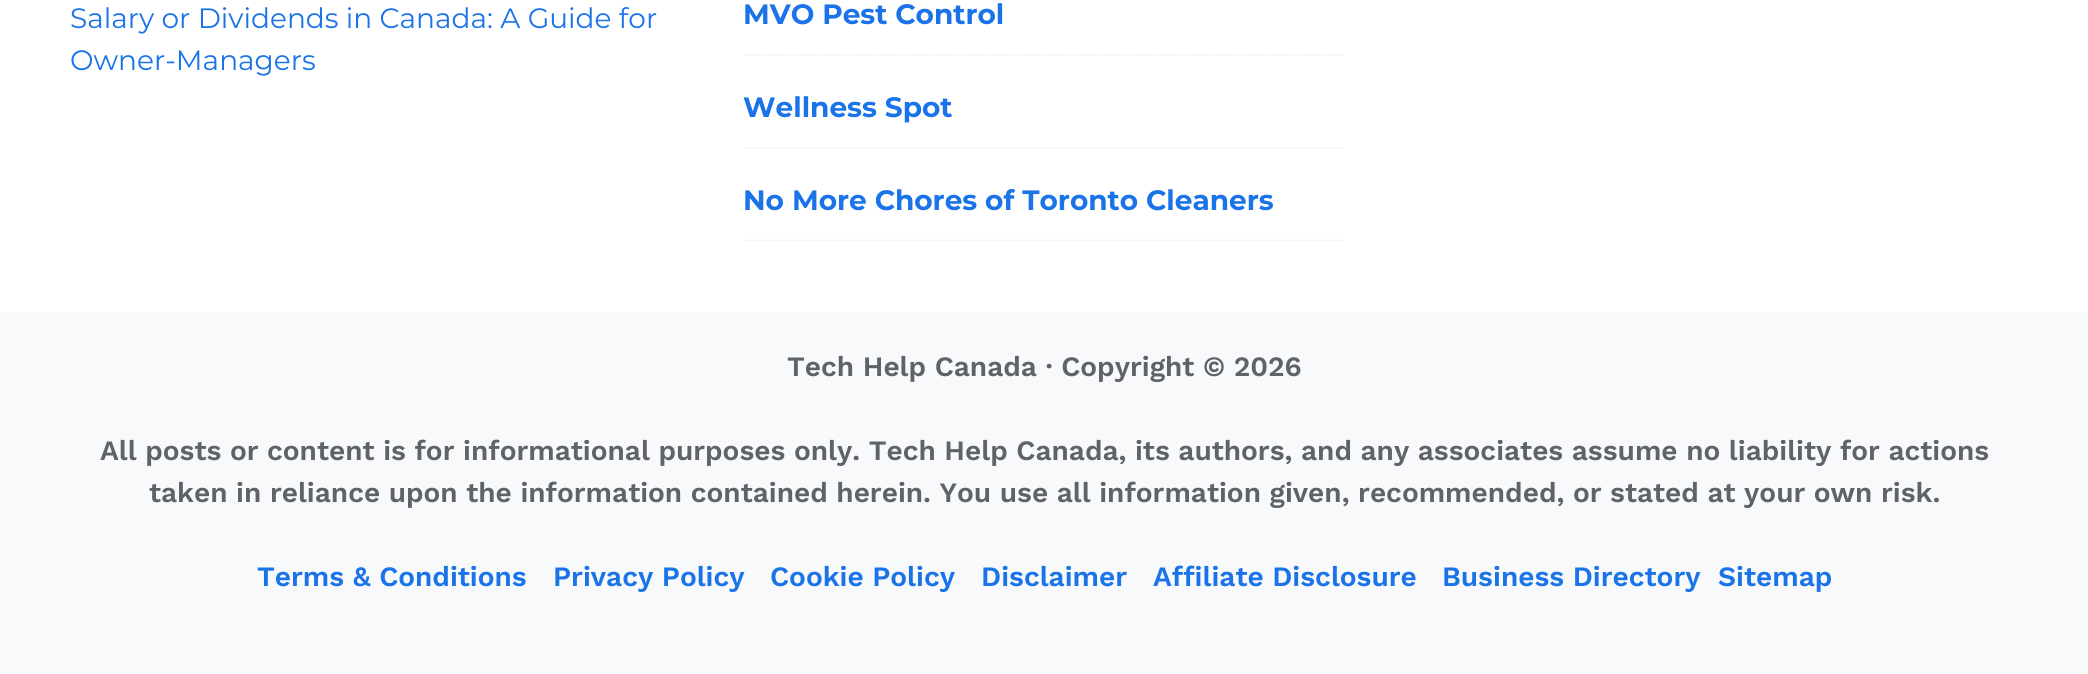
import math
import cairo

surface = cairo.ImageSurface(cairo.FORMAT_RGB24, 2088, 674)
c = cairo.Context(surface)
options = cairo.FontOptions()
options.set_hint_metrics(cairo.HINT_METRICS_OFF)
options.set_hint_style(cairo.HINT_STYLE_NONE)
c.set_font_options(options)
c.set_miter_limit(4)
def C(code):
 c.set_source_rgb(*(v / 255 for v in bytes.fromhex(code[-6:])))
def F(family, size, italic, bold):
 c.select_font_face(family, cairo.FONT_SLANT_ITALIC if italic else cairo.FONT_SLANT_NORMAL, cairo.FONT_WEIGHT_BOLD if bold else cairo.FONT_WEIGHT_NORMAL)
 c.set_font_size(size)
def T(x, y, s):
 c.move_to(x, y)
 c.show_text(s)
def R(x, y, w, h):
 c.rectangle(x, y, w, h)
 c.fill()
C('ffffff')
c.paint()
F('Montserrat',28,0,0)
C('1a73e8')
T(70,28,'Salary or Dividends in Canada: A Guide for')
T(70,70,'Owner-Managers')
c.new_path()
c.move_to(744,55)
c.line_to(1346,55)
C('eeeeee')
c.set_line_width(1.8)
c.set_dash([1.75,1.75])
c.stroke()
F('Montserrat',28,0,1)
C('1a73e8')
T(743,24,'MVO Pest Control')
c.new_path()
c.move_to(744,148)
c.line_to(1346,148)
C('eeeeee')
c.stroke()
C('1a73e8')
T(743,117,'Wellness Spot')
c.new_path()
c.move_to(744,240.5)
c.line_to(1346,240.5)
C('eeeeee')
c.stroke()
C('1a73e8')
T(743,210,'No More Chores of Toronto Cleaners')
C('f8f9fa')
R(0,312,2088,362)
F('Work Sans SemiBold',28,0,0)
C('5f6368')
T(787,376,'Tech Help Canada · Copyright © 2026')
T(100,460,'All posts or content is for informational purposes only. Tech Help Canada, its authors, and any associates assume no liability for actions')
T(149,502,'taken in reliance upon the information contained herein. You use all information given, recommended, or stated at your own risk.')
C('1a73e8')
T(257,586,'Terms & Conditions')
T(553,586,'Privacy Policy')
T(770,586,'Cookie Policy')
T(981,586,'Disclaimer')
T(1153,586,'Affiliate Disclosure')
T(1442,586,'Business Directory')
T(1718,586,'Sitemap')
surface.write_to_png('o.png')
